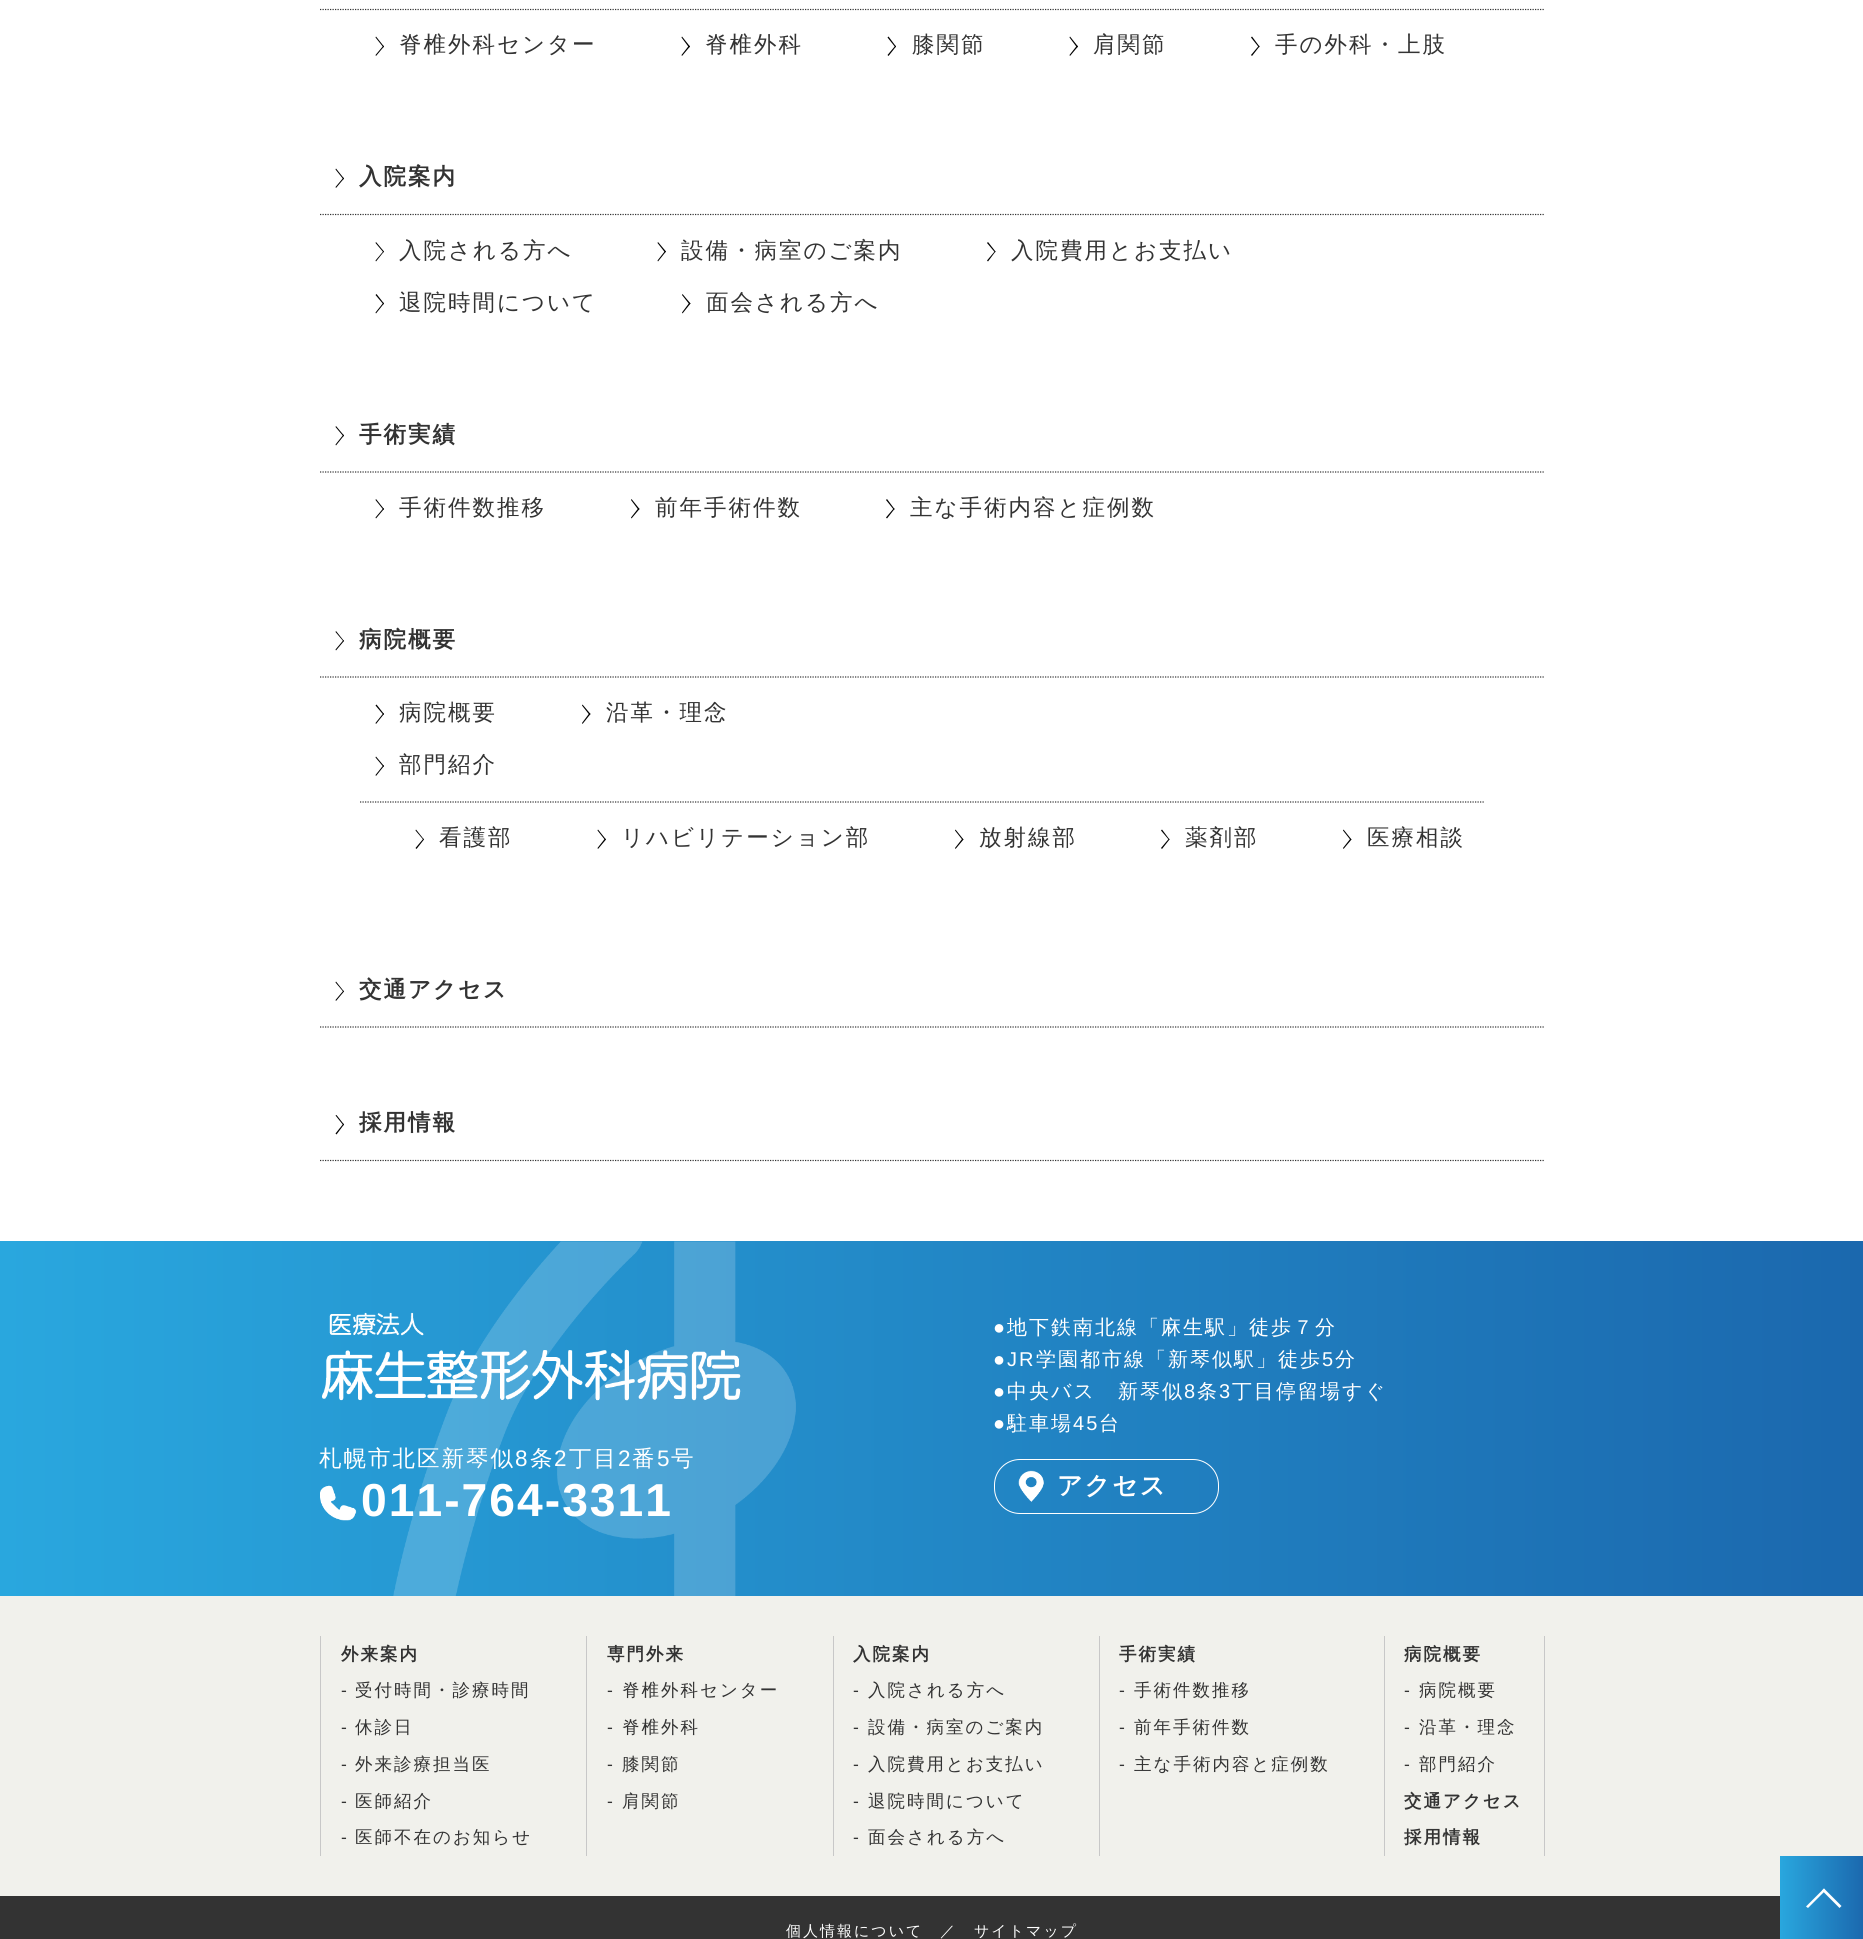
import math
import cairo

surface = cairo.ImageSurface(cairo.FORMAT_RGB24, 1863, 1939)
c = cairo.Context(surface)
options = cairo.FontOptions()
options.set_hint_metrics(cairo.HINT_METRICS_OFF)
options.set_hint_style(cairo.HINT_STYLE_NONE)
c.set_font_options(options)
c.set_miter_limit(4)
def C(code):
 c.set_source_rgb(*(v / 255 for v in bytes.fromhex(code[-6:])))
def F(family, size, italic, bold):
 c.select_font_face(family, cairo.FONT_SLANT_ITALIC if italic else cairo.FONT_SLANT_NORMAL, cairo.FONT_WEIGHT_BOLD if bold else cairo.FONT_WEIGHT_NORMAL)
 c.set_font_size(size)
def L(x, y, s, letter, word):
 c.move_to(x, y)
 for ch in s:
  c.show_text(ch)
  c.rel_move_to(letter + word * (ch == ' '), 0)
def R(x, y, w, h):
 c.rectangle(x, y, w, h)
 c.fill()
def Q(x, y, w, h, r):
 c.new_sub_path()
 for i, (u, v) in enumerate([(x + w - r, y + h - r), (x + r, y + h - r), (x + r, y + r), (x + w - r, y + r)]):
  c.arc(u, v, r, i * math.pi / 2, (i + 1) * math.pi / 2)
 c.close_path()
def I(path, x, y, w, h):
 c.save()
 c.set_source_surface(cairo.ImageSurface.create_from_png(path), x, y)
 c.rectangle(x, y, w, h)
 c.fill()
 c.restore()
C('ffffff')
c.paint()
c.new_path()
c.move_to(320,9.5)
c.line_to(1545,9.5)
C('333333')
c.set_line_width(1.2)
c.set_dash([1.25,1.25])
c.stroke()
C('000000')
c.new_path()
c.move_to(376,36.5)
c.line_to(384,46.5)
c.line_to(383.5,47.5)
c.line_to(375.5,37.5)
c.close_path()
c.fill()
c.new_path()
c.move_to(383.5,45.5)
c.line_to(384,46.5)
c.line_to(376,56)
c.line_to(375.5,55)
c.close_path()
c.fill()
F('WenQuanYi Zen Hei Medium',22.5,0,0)
C('333333')
L(399,52,'脊椎外科センター',2,0)
C('000000')
c.new_path()
c.move_to(682,36.5)
c.line_to(690,46.5)
c.line_to(689,47.5)
c.line_to(681.5,37.5)
c.close_path()
c.fill()
c.new_path()
c.move_to(689,45.5)
c.line_to(690,46.5)
c.line_to(682,56)
c.line_to(681.5,55)
c.close_path()
c.fill()
C('333333')
L(705,52,'脊椎外科',2,0)
C('000000')
c.new_path()
c.move_to(888.5,36.5)
c.line_to(896,46.5)
c.line_to(895.5,47.5)
c.line_to(887.5,37.5)
c.close_path()
c.fill()
c.new_path()
c.move_to(895.5,45.5)
c.line_to(896,46.5)
c.line_to(888.5,56)
c.line_to(887.5,55)
c.close_path()
c.fill()
C('333333')
L(912,52,'膝関節',2,0)
C('000000')
c.new_path()
c.move_to(1070,36.5)
c.line_to(1078,46.5)
c.line_to(1077,47.5)
c.line_to(1069.5,37.5)
c.close_path()
c.fill()
c.new_path()
c.move_to(1077,45.5)
c.line_to(1078,46.5)
c.line_to(1070,56)
c.line_to(1069.5,55)
c.close_path()
c.fill()
C('333333')
L(1093,52,'肩関節',2,0)
C('000000')
c.new_path()
c.move_to(1252,36.5)
c.line_to(1259.5,46.5)
c.line_to(1259,47.5)
c.line_to(1251,37.5)
c.close_path()
c.fill()
c.new_path()
c.move_to(1259,45.5)
c.line_to(1259.5,46.5)
c.line_to(1252,56)
c.line_to(1251,55)
c.close_path()
c.fill()
C('333333')
L(1275,52,'手の外科・上肢',2,0)
c.new_path()
c.move_to(320,214.5)
c.line_to(1545,214.5)
c.stroke()
C('000000')
c.new_path()
c.move_to(336,168.5)
c.line_to(344,178.5)
c.line_to(343.5,179.5)
c.line_to(335.5,169.5)
c.close_path()
c.fill()
c.new_path()
c.move_to(343.5,177.5)
c.line_to(344,178.5)
c.line_to(336,188)
c.line_to(335.5,187)
c.close_path()
c.fill()
F('WenQuanYi Zen Hei',22.5,0,1)
C('333333')
L(359,184,'入院案内',2,0)
C('000000')
c.new_path()
c.move_to(376,242)
c.line_to(384,251.5)
c.line_to(383.5,252.5)
c.line_to(375.5,243)
c.close_path()
c.fill()
c.new_path()
c.move_to(383.5,251)
c.line_to(384,251.5)
c.line_to(376,261.5)
c.line_to(375.5,260.5)
c.close_path()
c.fill()
F('WenQuanYi Zen Hei Medium',22.5,0,0)
C('333333')
L(399,258,'入院される方へ',2,0)
C('000000')
c.new_path()
c.move_to(658,242)
c.line_to(666,251.5)
c.line_to(665,252.5)
c.line_to(657.5,243)
c.close_path()
c.fill()
c.new_path()
c.move_to(665,251)
c.line_to(666,251.5)
c.line_to(658,261.5)
c.line_to(657.5,260.5)
c.close_path()
c.fill()
C('333333')
L(681,258,'設備・病室のご案内',2,0)
C('000000')
c.new_path()
c.move_to(988,242)
c.line_to(995.5,251.5)
c.line_to(995,252.5)
c.line_to(987,243)
c.close_path()
c.fill()
c.new_path()
c.move_to(995,251)
c.line_to(995.5,251.5)
c.line_to(988,261.5)
c.line_to(987,260.5)
c.close_path()
c.fill()
C('333333')
L(1011,258,'入院費用とお支払い',2,0)
C('000000')
c.new_path()
c.move_to(376.5,294)
c.line_to(384,303.5)
c.line_to(383.5,304.5)
c.line_to(375.5,295)
c.close_path()
c.fill()
c.new_path()
c.move_to(383.5,302.5)
c.line_to(384,303.5)
c.line_to(376,313.5)
c.line_to(375.5,312.5)
c.close_path()
c.fill()
C('333333')
L(399,310,'退院時間について',2,0)
C('000000')
c.new_path()
c.move_to(682.5,294)
c.line_to(690.5,303.5)
c.line_to(689.5,304.5)
c.line_to(682,295)
c.close_path()
c.fill()
c.new_path()
c.move_to(689.5,302.5)
c.line_to(690.5,303.5)
c.line_to(682.5,313.5)
c.line_to(682,312.5)
c.close_path()
c.fill()
C('333333')
L(706,310,'面会される方へ',2,0)
c.new_path()
c.move_to(320,472)
c.line_to(1545,472)
c.stroke()
C('000000')
c.new_path()
c.move_to(336,426)
c.line_to(344,435.5)
c.line_to(343.5,436.5)
c.line_to(335.5,427)
c.close_path()
c.fill()
c.new_path()
c.move_to(343.5,434.5)
c.line_to(344,435.5)
c.line_to(336,445.5)
c.line_to(335.5,444.5)
c.close_path()
c.fill()
F('WenQuanYi Zen Hei',22.5,0,1)
C('333333')
L(359,442,'手術実績',2,0)
C('000000')
c.new_path()
c.move_to(376,499)
c.line_to(384,509)
c.line_to(383.5,510)
c.line_to(375.5,500)
c.close_path()
c.fill()
c.new_path()
c.move_to(383.5,508)
c.line_to(384,509)
c.line_to(376,518.5)
c.line_to(375.5,517.5)
c.close_path()
c.fill()
F('WenQuanYi Zen Hei Medium',22.5,0,0)
C('333333')
L(399,515,'手術件数推移',2,0)
C('000000')
c.new_path()
c.move_to(631.5,499)
c.line_to(639.5,509)
c.line_to(638.5,510)
c.line_to(631,500)
c.close_path()
c.fill()
c.new_path()
c.move_to(638.5,508)
c.line_to(639.5,509)
c.line_to(631.5,518.5)
c.line_to(631,517.5)
c.close_path()
c.fill()
C('333333')
L(655,515,'前年手術件数',2,0)
C('000000')
c.new_path()
c.move_to(887,499)
c.line_to(894.5,509)
c.line_to(894,510)
c.line_to(886,500)
c.close_path()
c.fill()
c.new_path()
c.move_to(894,508)
c.line_to(894.5,509)
c.line_to(887,518.5)
c.line_to(886,517.5)
c.close_path()
c.fill()
C('333333')
L(910,515,'主な手術内容と症例数',2,0)
c.new_path()
c.move_to(320,677)
c.line_to(1545,677)
c.stroke()
C('000000')
c.new_path()
c.move_to(336,631)
c.line_to(344,641)
c.line_to(343.5,641.5)
c.line_to(335.5,632)
c.close_path()
c.fill()
c.new_path()
c.move_to(343.5,640)
c.line_to(344,641)
c.line_to(336,650.5)
c.line_to(335.5,649.5)
c.close_path()
c.fill()
F('WenQuanYi Zen Hei',22.5,0,1)
C('333333')
L(359,647,'病院概要',2,0)
C('000000')
c.new_path()
c.move_to(376.5,704.5)
c.line_to(384,714)
c.line_to(383.5,715)
c.line_to(375.5,705.5)
c.close_path()
c.fill()
c.new_path()
c.move_to(383.5,713)
c.line_to(384,714)
c.line_to(376,724)
c.line_to(375.5,723)
c.close_path()
c.fill()
F('WenQuanYi Zen Hei Medium',22.5,0,0)
C('333333')
L(399,720,'病院概要',2,0)
C('000000')
c.new_path()
c.move_to(582.5,704.5)
c.line_to(590.5,714)
c.line_to(589.5,715)
c.line_to(582,705.5)
c.close_path()
c.fill()
c.new_path()
c.move_to(589.5,713)
c.line_to(590.5,714)
c.line_to(582.5,724)
c.line_to(582,723)
c.close_path()
c.fill()
C('333333')
L(606,720,'沿革・理念',2,0)
c.new_path()
c.move_to(360,802)
c.line_to(1485,802)
c.stroke()
C('000000')
c.new_path()
c.move_to(376,756.5)
c.line_to(384,766)
c.line_to(383.5,767)
c.line_to(375.5,757.5)
c.close_path()
c.fill()
c.new_path()
c.move_to(383.5,765)
c.line_to(384,766)
c.line_to(376,776)
c.line_to(375.5,775)
c.close_path()
c.fill()
C('333333')
L(399,772,'部門紹介',2,0)
C('000000')
c.new_path()
c.move_to(416,829.5)
c.line_to(424,839.5)
c.line_to(423.5,840)
c.line_to(415.5,830.5)
c.close_path()
c.fill()
c.new_path()
c.move_to(423.5,838.5)
c.line_to(424,839.5)
c.line_to(416.5,849)
c.line_to(415.5,848)
c.close_path()
c.fill()
C('333333')
L(439,845,'看護部',2,0)
C('000000')
c.new_path()
c.move_to(598,829.5)
c.line_to(606,839.5)
c.line_to(605,840)
c.line_to(597.5,830.5)
c.close_path()
c.fill()
c.new_path()
c.move_to(605,838.5)
c.line_to(606,839.5)
c.line_to(598,849)
c.line_to(597.5,848)
c.close_path()
c.fill()
C('333333')
L(621,845,'リハビリテーション部',2,0)
C('000000')
c.new_path()
c.move_to(955.5,829.5)
c.line_to(963.5,839.5)
c.line_to(962.5,840)
c.line_to(955,830.5)
c.close_path()
c.fill()
c.new_path()
c.move_to(962.5,838.5)
c.line_to(963.5,839.5)
c.line_to(955.5,849)
c.line_to(955,848)
c.close_path()
c.fill()
C('333333')
L(979,845,'放射線部',2,0)
C('000000')
c.new_path()
c.move_to(1162,829.5)
c.line_to(1169.5,839.5)
c.line_to(1169,840)
c.line_to(1161,830.5)
c.close_path()
c.fill()
c.new_path()
c.move_to(1169,838.5)
c.line_to(1169.5,839.5)
c.line_to(1162,849)
c.line_to(1161,848)
c.close_path()
c.fill()
C('333333')
L(1185,845,'薬剤部',2,0)
C('000000')
c.new_path()
c.move_to(1343.5,829.5)
c.line_to(1351.5,839.5)
c.line_to(1350.5,840)
c.line_to(1343,830.5)
c.close_path()
c.fill()
c.new_path()
c.move_to(1350.5,838.5)
c.line_to(1351.5,839.5)
c.line_to(1343.5,849)
c.line_to(1343,848)
c.close_path()
c.fill()
C('333333')
L(1367,845,'医療相談',2,0)
c.new_path()
c.move_to(320,1027)
c.line_to(1545,1027)
c.stroke()
C('000000')
c.new_path()
c.move_to(336,981.5)
c.line_to(344,991.5)
c.line_to(343.5,992)
c.line_to(335.5,982.5)
c.close_path()
c.fill()
c.new_path()
c.move_to(343.5,990.5)
c.line_to(344,991.5)
c.line_to(336,1001)
c.line_to(335.5,1000)
c.close_path()
c.fill()
F('WenQuanYi Zen Hei',22.5,0,1)
C('333333')
L(359,997,'交通アクセス',2,0)
c.new_path()
c.move_to(320,1160.5)
c.line_to(1545,1160.5)
c.stroke()
C('000000')
c.new_path()
c.move_to(336.5,1115)
c.line_to(344,1124.5)
c.line_to(343.5,1125.5)
c.line_to(335.5,1115.5)
c.close_path()
c.fill()
c.new_path()
c.move_to(343.5,1123.5)
c.line_to(344,1124.5)
c.line_to(336.5,1134.5)
c.line_to(335.5,1133.5)
c.close_path()
c.fill()
C('333333')
L(359,1130,'採用情報',2,0)
gradient = cairo.LinearGradient(0,1419,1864,1419)
gradient.add_color_stop_rgba(0,0.161,0.655,0.871,1)
gradient.add_color_stop_rgba(1,0.106,0.408,0.682,1)
c.set_source(gradient)
R(0,1241,1863,355)
I('1.png',393,1241,403,355)
I('2.png',322,1312,419,89)
F('WenQuanYi Zen Hei Medium',22.5,0,0)
C('ffffff')
L(319,1466,'札幌市北区新琴似',2,0)
F('Liberation Sans',22.5,0,0)
L(515,1466,'8',2,0)
F('WenQuanYi Zen Hei Medium',22.5,0,0)
L(530,1466,'条',2,0)
F('Liberation Sans',22.5,0,0)
L(554,1466,'2',2,0)
F('WenQuanYi Zen Hei Medium',22.5,0,0)
L(569,1466,'丁目',2,0)
F('Liberation Sans',22.5,0,0)
L(618,1466,'2',2,0)
F('WenQuanYi Zen Hei Medium',22.5,0,0)
L(632,1466,'番',2,0)
F('Liberation Sans',22.5,0,0)
L(657,1466,'5',2,0)
F('WenQuanYi Zen Hei Medium',22.5,0,0)
L(671,1466,'号',2,0)
I('3.png',320,1485,37,36)
F('Liberation Sans',46.25,0,1)
L(361,1516,'011-764-3311',2,0)
F('Liberation Sans',20,0,0)
L(993,1334,'●',2,0)
F('WenQuanYi Zen Hei Medium',20,0,0)
L(1007,1334,'地下鉄南北線「麻生駅」徒歩７分',2,0)
F('Liberation Sans',20,0,0)
L(993,1366,'●JR',2,0)
F('WenQuanYi Zen Hei Medium',20,0,0)
L(1036,1366,'学園都市線「新琴似駅」徒歩',2,0)
F('Liberation Sans',20,0,0)
L(1322,1366,'5',2,0)
F('WenQuanYi Zen Hei Medium',20,0,0)
L(1335,1366,'分',2,0)
F('Liberation Sans',20,0,0)
L(993,1398,'●',2,0)
F('WenQuanYi Zen Hei Medium',20,0,0)
L(1007,1398,'中央バス　新琴似',2,0)
F('Liberation Sans',20,0,0)
L(1184,1398,'8',2,0)
F('WenQuanYi Zen Hei Medium',20,0,0)
L(1197,1398,'条',2,0)
F('Liberation Sans',20,0,0)
L(1219,1398,'3',2,0)
F('WenQuanYi Zen Hei Medium',20,0,0)
L(1232,1398,'丁目停留場すぐ',2,0)
F('Liberation Sans',20,0,0)
L(993,1430,'●',2,0)
F('WenQuanYi Zen Hei Medium',20,0,0)
L(1007,1430,'駐車場',2,0)
F('Liberation Sans',20,0,0)
L(1073,1430,'45',2,0)
F('WenQuanYi Zen Hei Medium',20,0,0)
L(1099,1430,'台',2,0)
Q(994.5,1459.5,224,54,25.5)
c.set_line_width(1)
c.set_dash([])
c.stroke()
I('4.png',1018,1470,26,32)
F('WenQuanYi Zen Hei',25,0,1)
L(1057,1494,'アクセス',2,0)
C('f1f1ec')
R(0,1596,1863,300)
C('c8c8c8')
R(1544,1636,1,220)
R(320,1636,1,220)
F('WenQuanYi Zen Hei',17.5,0,1)
C('333333')
L(341,1660,'外来案内',2,0)
F('Liberation Sans',17.5,0,0)
L(341,1696,'-',2,0)
F('WenQuanYi Zen Hei Medium',17.5,0,0)
L(355,1696,'受付時間・診療時間',2,0)
F('Liberation Sans',17.5,0,0)
L(341,1733,'-',2,0)
F('WenQuanYi Zen Hei Medium',17.5,0,0)
L(355,1733,'休診日',2,0)
F('Liberation Sans',17.5,0,0)
L(341,1770,'-',2,0)
F('WenQuanYi Zen Hei Medium',17.5,0,0)
L(355,1770,'外来診療担当医',2,0)
F('Liberation Sans',17.5,0,0)
L(341,1807,'-',2,0)
F('WenQuanYi Zen Hei Medium',17.5,0,0)
L(355,1807,'医師紹介',2,0)
F('Liberation Sans',17.5,0,0)
L(341,1843,'-',2,0)
F('WenQuanYi Zen Hei Medium',17.5,0,0)
L(355,1843,'医師不在のお知らせ',2,0)
C('c8c8c8')
R(586,1636,1,220)
F('WenQuanYi Zen Hei',17.5,0,1)
C('333333')
L(607,1660,'専門外来',2,0)
F('Liberation Sans',17.5,0,0)
L(607,1696,'-',2,0)
F('WenQuanYi Zen Hei Medium',17.5,0,0)
L(622,1696,'脊椎外科センター',2,0)
F('Liberation Sans',17.5,0,0)
L(607,1733,'-',2,0)
F('WenQuanYi Zen Hei Medium',17.5,0,0)
L(622,1733,'脊椎外科',2,0)
F('Liberation Sans',17.5,0,0)
L(607,1770,'-',2,0)
F('WenQuanYi Zen Hei Medium',17.5,0,0)
L(622,1770,'膝関節',2,0)
F('Liberation Sans',17.5,0,0)
L(607,1807,'-',2,0)
F('WenQuanYi Zen Hei Medium',17.5,0,0)
L(622,1807,'肩関節',2,0)
C('c8c8c8')
R(833,1636,1,220)
F('WenQuanYi Zen Hei',17.5,0,1)
C('333333')
L(853,1660,'入院案内',2,0)
F('Liberation Sans',17.5,0,0)
L(853,1696,'-',2,0)
F('WenQuanYi Zen Hei Medium',17.5,0,0)
L(868,1696,'入院される方へ',2,0)
F('Liberation Sans',17.5,0,0)
L(853,1733,'-',2,0)
F('WenQuanYi Zen Hei Medium',17.5,0,0)
L(868,1733,'設備・病室のご案内',2,0)
F('Liberation Sans',17.5,0,0)
L(853,1770,'-',2,0)
F('WenQuanYi Zen Hei Medium',17.5,0,0)
L(868,1770,'入院費用とお支払い',2,0)
F('Liberation Sans',17.5,0,0)
L(853,1807,'-',2,0)
F('WenQuanYi Zen Hei Medium',17.5,0,0)
L(868,1807,'退院時間について',2,0)
F('Liberation Sans',17.5,0,0)
L(853,1843,'-',2,0)
F('WenQuanYi Zen Hei Medium',17.5,0,0)
L(868,1843,'面会される方へ',2,0)
C('c8c8c8')
R(1099,1636,1,220)
F('WenQuanYi Zen Hei',17.5,0,1)
C('333333')
L(1119,1660,'手術実績',2,0)
F('Liberation Sans',17.5,0,0)
L(1119,1696,'-',2,0)
F('WenQuanYi Zen Hei Medium',17.5,0,0)
L(1134,1696,'手術件数推移',2,0)
F('Liberation Sans',17.5,0,0)
L(1119,1733,'-',2,0)
F('WenQuanYi Zen Hei Medium',17.5,0,0)
L(1134,1733,'前年手術件数',2,0)
F('Liberation Sans',17.5,0,0)
L(1119,1770,'-',2,0)
F('WenQuanYi Zen Hei Medium',17.5,0,0)
L(1134,1770,'主な手術内容と症例数',2,0)
C('c8c8c8')
R(1384,1636,1,220)
F('WenQuanYi Zen Hei',17.5,0,1)
C('333333')
L(1404,1660,'病院概要',2,0)
F('Liberation Sans',17.5,0,0)
L(1404,1696,'-',2,0)
F('WenQuanYi Zen Hei Medium',17.5,0,0)
L(1419,1696,'病院概要',2,0)
F('Liberation Sans',17.5,0,0)
L(1404,1733,'-',2,0)
F('WenQuanYi Zen Hei Medium',17.5,0,0)
L(1419,1733,'沿革・理念',2,0)
F('Liberation Sans',17.5,0,0)
L(1404,1770,'-',2,0)
F('WenQuanYi Zen Hei Medium',17.5,0,0)
L(1419,1770,'部門紹介',2,0)
F('WenQuanYi Zen Hei',17.5,0,1)
L(1404,1807,'交通アクセス',2,0)
L(1404,1843,'採用情報',2,0)
R(0,1896,1780,43)
F('WenQuanYi Zen Hei Medium',15,0,0)
C('ffffff')
L(786,1936,'個人情報について',2,0)
L(940,1936,'／',2,0)
L(974,1936,'サイトマップ',2,0)
gradient = cairo.LinearGradient(1780,1898,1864,1898)
gradient.add_color_stop_rgba(0,0.161,0.655,0.871,1)
gradient.add_color_stop_rgba(1,0.106,0.408,0.682,1)
c.set_source(gradient)
R(1780,1856,83,83)
C('ffffff')
c.new_path()
c.move_to(1806,1906.5)
c.line_to(1824,1888.5)
c.line_to(1825.5,1890.5)
c.line_to(1808,1908)
c.close_path()
c.fill()
c.new_path()
c.move_to(1822,1890.5)
c.line_to(1824,1888.5)
c.line_to(1841.5,1906)
c.line_to(1839.5,1908)
c.close_path()
c.fill()
surface.write_to_png('o.png')
